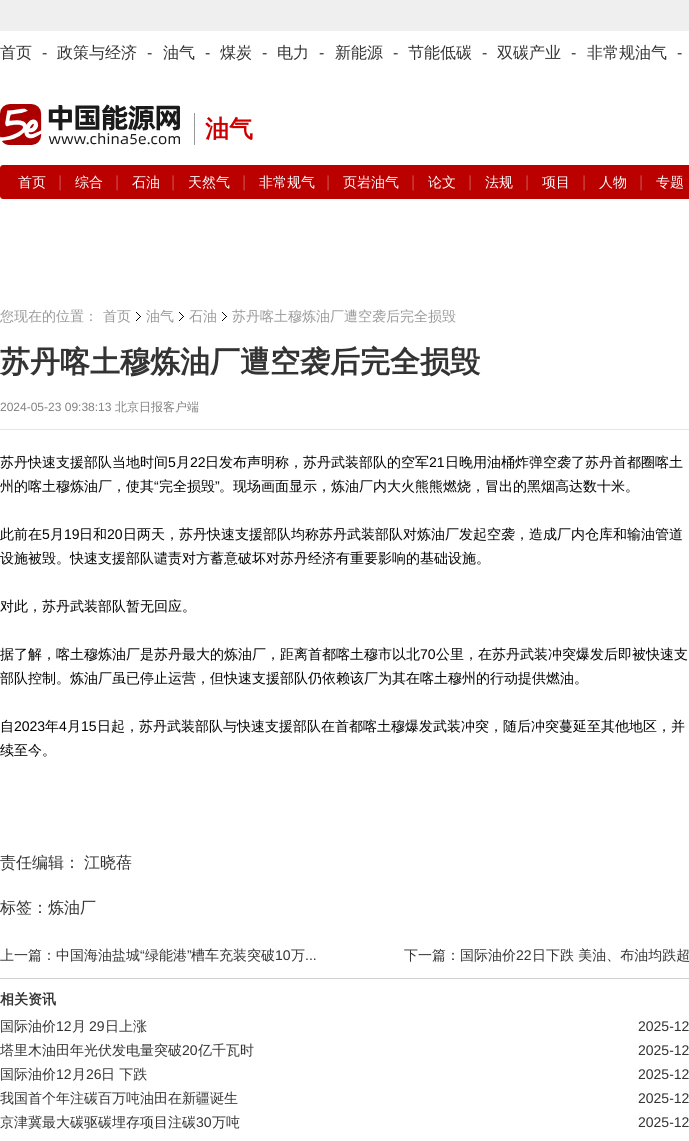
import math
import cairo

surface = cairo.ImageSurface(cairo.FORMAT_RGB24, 689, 1141)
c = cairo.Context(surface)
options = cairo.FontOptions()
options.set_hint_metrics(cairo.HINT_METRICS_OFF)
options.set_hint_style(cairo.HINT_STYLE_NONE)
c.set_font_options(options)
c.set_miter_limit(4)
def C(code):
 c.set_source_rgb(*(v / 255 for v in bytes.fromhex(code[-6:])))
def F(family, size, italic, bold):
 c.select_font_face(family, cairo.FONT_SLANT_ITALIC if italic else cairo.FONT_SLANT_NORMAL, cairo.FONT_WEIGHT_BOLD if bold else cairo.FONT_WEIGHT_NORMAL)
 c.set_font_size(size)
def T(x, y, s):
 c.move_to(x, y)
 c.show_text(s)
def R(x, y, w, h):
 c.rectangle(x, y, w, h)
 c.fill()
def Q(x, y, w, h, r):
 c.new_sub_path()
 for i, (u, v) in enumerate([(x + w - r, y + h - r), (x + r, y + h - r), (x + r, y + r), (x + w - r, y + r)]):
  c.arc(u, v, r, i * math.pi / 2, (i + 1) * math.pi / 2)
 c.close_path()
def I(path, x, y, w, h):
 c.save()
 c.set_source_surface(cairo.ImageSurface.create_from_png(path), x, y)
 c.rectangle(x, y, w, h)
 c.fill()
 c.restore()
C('ffffff')
c.paint()
C('efefef')
R(0,0,689,31)
F('WenQuanYi Zen Hei Medium',16,0,0)
C('333333')
T(0,58,'首页')
F('Liberation Sans',16,0,0)
T(42,58,'-')
F('WenQuanYi Zen Hei Medium',16,0,0)
T(57,58,'政策与经济')
F('Liberation Sans',16,0,0)
T(147,58,'-')
F('WenQuanYi Zen Hei Medium',16,0,0)
T(163,58,'油气')
F('Liberation Sans',16,0,0)
T(205,58,'-')
F('WenQuanYi Zen Hei Medium',16,0,0)
T(220,58,'煤炭')
F('Liberation Sans',16,0,0)
T(262,58,'-')
F('WenQuanYi Zen Hei Medium',16,0,0)
T(277,58,'电力')
F('Liberation Sans',16,0,0)
T(319,58,'-')
F('WenQuanYi Zen Hei Medium',16,0,0)
T(335,58,'新能源')
F('Liberation Sans',16,0,0)
T(393,58,'-')
F('WenQuanYi Zen Hei Medium',16,0,0)
T(408,58,'节能低碳')
F('Liberation Sans',16,0,0)
T(482,58,'-')
F('WenQuanYi Zen Hei Medium',16,0,0)
T(497,58,'双碳产业')
F('Liberation Sans',16,0,0)
T(571,58,'-')
F('WenQuanYi Zen Hei Medium',16,0,0)
T(587,58,'非常规油气')
F('Liberation Sans',16,0,0)
T(677,58,'-')
I('1.png',0,104,180,41)
C('999999')
R(194,113,1,32)
F('WenQuanYi Zen Hei',24,0,1)
C('cc0000')
T(205,137,'油气')
C('bb0000')
Q(0,165,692,34,3)
c.fill()
F('WenQuanYi Zen Hei Medium',14,0,0)
C('ffffff')
T(18,187,'首页')
F('Liberation Sans',16,0,0)
C('ca4747')
T(58,187,'|')
F('WenQuanYi Zen Hei Medium',14,0,0)
C('ffffff')
T(75,187,'综合')
F('Liberation Sans',16,0,0)
C('ca4747')
T(115,187,'|')
F('WenQuanYi Zen Hei Medium',14,0,0)
C('ffffff')
T(132,187,'石油')
F('Liberation Sans',16,0,0)
C('ca4747')
T(171,187,'|')
F('WenQuanYi Zen Hei Medium',14,0,0)
C('ffffff')
T(188,187,'天然气')
F('Liberation Sans',16,0,0)
C('ca4747')
T(242,187,'|')
F('WenQuanYi Zen Hei Medium',14,0,0)
C('ffffff')
T(259,187,'非常规气')
F('Liberation Sans',16,0,0)
C('ca4747')
T(326,187,'|')
F('WenQuanYi Zen Hei Medium',14,0,0)
C('ffffff')
T(343,187,'页岩油气')
F('Liberation Sans',16,0,0)
C('ca4747')
T(411,187,'|')
F('WenQuanYi Zen Hei Medium',14,0,0)
C('ffffff')
T(428,187,'论文')
F('Liberation Sans',16,0,0)
C('ca4747')
T(468,187,'|')
F('WenQuanYi Zen Hei Medium',14,0,0)
C('ffffff')
T(485,187,'法规')
F('Liberation Sans',16,0,0)
C('ca4747')
T(525,187,'|')
F('WenQuanYi Zen Hei Medium',14,0,0)
C('ffffff')
T(542,187,'项目')
F('Liberation Sans',16,0,0)
C('ca4747')
T(582,187,'|')
F('WenQuanYi Zen Hei Medium',14,0,0)
C('ffffff')
T(599,187,'人物')
F('Liberation Sans',16,0,0)
C('ca4747')
T(639,187,'|')
F('WenQuanYi Zen Hei Medium',14,0,0)
C('ffffff')
T(656,187,'专题')
C('999999')
T(0,321,'您现在的位置：')
I('2.png',136,312,5,9)
T(103,321,'首页')
I('2.png',179,312,5,9)
T(146,321,'油气')
T(189,321,'石油')
I('2.png',222,312,5,9)
T(232,321,'苏丹喀土穆炼油厂遭空袭后完全损毁')
C('e5e5e5')
R(0,429,689,1)
F('WenQuanYi Zen Hei',30,0,1)
C('333333')
T(0,372,'苏丹喀土穆炼油厂遭空袭后完全损毁')
F('Liberation Sans',12,0,0)
C('7f7f7f')
T(0,411,'2024-05-23 09:38:13')
F('WenQuanYi Zen Hei Medium',12,0,0)
T(115,411,'北京日报客户端')
F('WenQuanYi Zen Hei Medium',14,0,0)
C('000000')
T(0,467,'苏丹快速支援部队当地时间')
F('Liberation Sans',14,0,0)
T(168,467,'5')
F('WenQuanYi Zen Hei Medium',14,0,0)
T(176,467,'月')
F('Liberation Sans',14,0,0)
T(190,467,'22')
F('WenQuanYi Zen Hei Medium',14,0,0)
T(205,467,'日发布声明称，苏丹武装部队的空军')
F('Liberation Sans',14,0,0)
T(429,467,'21')
F('WenQuanYi Zen Hei Medium',14,0,0)
T(445,467,'日晚用油桶炸弹空袭了苏丹首都圈喀土')
T(0,491,'州的喀土穆炼油厂，使其')
F('Liberation Sans',14,0,0)
T(154,491,'“')
F('WenQuanYi Zen Hei Medium',14,0,0)
T(159,491,'完全损毁')
F('Liberation Sans',14,0,0)
T(215,491,'”')
F('WenQuanYi Zen Hei Medium',14,0,0)
T(219,491,'。现场画面显示，炼油厂内大火熊熊燃烧，冒出的黑烟高达数十米。')
T(0,539,'此前在')
F('Liberation Sans',14,0,0)
T(42,539,'5')
F('WenQuanYi Zen Hei Medium',14,0,0)
T(50,539,'月')
F('Liberation Sans',14,0,0)
T(64,539,'19')
F('WenQuanYi Zen Hei Medium',14,0,0)
T(79,539,'日和')
F('Liberation Sans',14,0,0)
T(107,539,'20')
F('WenQuanYi Zen Hei Medium',14,0,0)
T(123,539,'日两天，苏丹快速支援部队均称苏丹武装部队对炼油厂发起空袭，造成厂内仓库和输油管道')
T(0,563,'设施被毁。快速支援部队谴责对方蓄意破坏对苏丹经济有重要影响的基础设施。')
T(0,611,'对此，苏丹武装部队暂无回应。')
T(0,659,'据了解，喀土穆炼油厂是苏丹最大的炼油厂，距离首都喀土穆市以北')
F('Liberation Sans',14,0,0)
T(420,659,'70')
F('WenQuanYi Zen Hei Medium',14,0,0)
T(436,659,'公里，在苏丹武装冲突爆发后即被快速支')
T(0,683,'部队控制。炼油厂虽已停止运营，但快速支援部队仍依赖该厂为其在喀土穆州的行动提供燃油。')
T(0,731,'自')
F('Liberation Sans',14,0,0)
T(14,731,'2023')
F('WenQuanYi Zen Hei Medium',14,0,0)
T(45,731,'年')
F('Liberation Sans',14,0,0)
T(59,731,'4')
F('WenQuanYi Zen Hei Medium',14,0,0)
T(67,731,'月')
F('Liberation Sans',14,0,0)
T(81,731,'15')
F('WenQuanYi Zen Hei Medium',14,0,0)
T(97,731,'日起，苏丹武装部队与快速支援部队在首都喀土穆爆发武装冲突，随后冲突蔓延至其他地区，并')
T(0,755,'续至今。')
F('WenQuanYi Zen Hei Medium',16,0,0)
C('333333')
T(0,868,'责任编辑：')
T(84,868,'江晓蓓')
T(0,913,'标签：炼油厂')
F('WenQuanYi Zen Hei Medium',14,0,0)
T(0,960,'上一篇：中国海油盐城')
F('Liberation Sans',14,0,0)
T(140,960,'“')
F('WenQuanYi Zen Hei Medium',14,0,0)
T(145,960,'绿能港')
F('Liberation Sans',14,0,0)
T(187,960,'”')
F('WenQuanYi Zen Hei Medium',14,0,0)
T(191,960,'槽车充装突破')
F('Liberation Sans',14,0,0)
T(275,960,'10')
F('WenQuanYi Zen Hei Medium',14,0,0)
T(291,960,'万')
F('Liberation Sans',14,0,0)
T(305,960,'...')
F('WenQuanYi Zen Hei Medium',14,0,0)
T(404,960,'下一篇：国际油价')
F('Liberation Sans',14,0,0)
T(516,960,'22')
F('WenQuanYi Zen Hei Medium',14,0,0)
T(532,960,'日下跌 美油、布油均跌超')
C('d0d0d0')
R(0,978,689,1)
F('WenQuanYi Zen Hei',14,0,1)
C('333333')
T(0,1004,'相关资讯')
F('WenQuanYi Zen Hei Medium',14,0,0)
T(0,1031,'国际油价')
F('Liberation Sans',14,0,0)
T(56,1031,'12')
F('WenQuanYi Zen Hei Medium',14,0,0)
T(72,1031,'月')
F('Liberation Sans',14,0,0)
T(89,1031,'29')
F('WenQuanYi Zen Hei Medium',14,0,0)
T(105,1031,'日上涨')
F('Liberation Sans',14,0,0)
T(638,1031,'2025-12')
F('WenQuanYi Zen Hei Medium',14,0,0)
T(0,1055,'塔里木油田年光伏发电量突破')
F('Liberation Sans',14,0,0)
T(182,1055,'20')
F('WenQuanYi Zen Hei Medium',14,0,0)
T(198,1055,'亿千瓦时')
F('Liberation Sans',14,0,0)
T(638,1055,'2025-12')
F('WenQuanYi Zen Hei Medium',14,0,0)
T(0,1079,'国际油价')
F('Liberation Sans',14,0,0)
T(56,1079,'12')
F('WenQuanYi Zen Hei Medium',14,0,0)
T(72,1079,'月')
F('Liberation Sans',14,0,0)
T(86,1079,'26')
F('WenQuanYi Zen Hei Medium',14,0,0)
T(101,1079,'日 下跌')
F('Liberation Sans',14,0,0)
T(638,1079,'2025-12')
F('WenQuanYi Zen Hei Medium',14,0,0)
T(0,1103,'我国首个年注碳百万吨油田在新疆诞生')
F('Liberation Sans',14,0,0)
T(638,1103,'2025-12')
F('WenQuanYi Zen Hei Medium',14,0,0)
T(0,1127,'京津冀最大碳驱碳埋存项目注碳')
F('Liberation Sans',14,0,0)
T(196,1127,'30')
F('WenQuanYi Zen Hei Medium',14,0,0)
T(212,1127,'万吨')
F('Liberation Sans',14,0,0)
T(638,1127,'2025-12')
surface.write_to_png('o.png')
